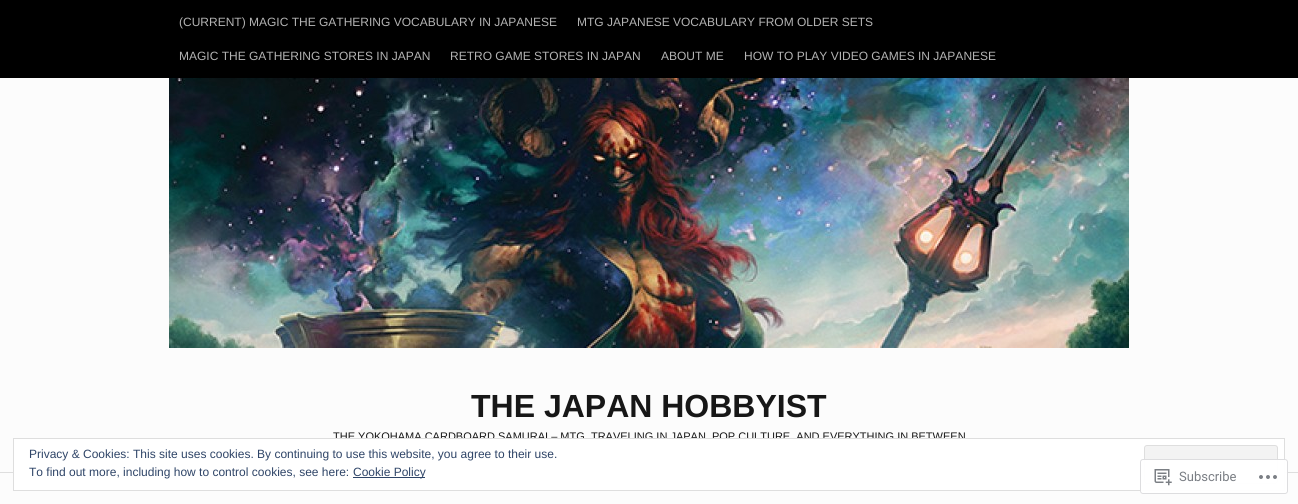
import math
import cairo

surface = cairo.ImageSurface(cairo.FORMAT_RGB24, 1298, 504)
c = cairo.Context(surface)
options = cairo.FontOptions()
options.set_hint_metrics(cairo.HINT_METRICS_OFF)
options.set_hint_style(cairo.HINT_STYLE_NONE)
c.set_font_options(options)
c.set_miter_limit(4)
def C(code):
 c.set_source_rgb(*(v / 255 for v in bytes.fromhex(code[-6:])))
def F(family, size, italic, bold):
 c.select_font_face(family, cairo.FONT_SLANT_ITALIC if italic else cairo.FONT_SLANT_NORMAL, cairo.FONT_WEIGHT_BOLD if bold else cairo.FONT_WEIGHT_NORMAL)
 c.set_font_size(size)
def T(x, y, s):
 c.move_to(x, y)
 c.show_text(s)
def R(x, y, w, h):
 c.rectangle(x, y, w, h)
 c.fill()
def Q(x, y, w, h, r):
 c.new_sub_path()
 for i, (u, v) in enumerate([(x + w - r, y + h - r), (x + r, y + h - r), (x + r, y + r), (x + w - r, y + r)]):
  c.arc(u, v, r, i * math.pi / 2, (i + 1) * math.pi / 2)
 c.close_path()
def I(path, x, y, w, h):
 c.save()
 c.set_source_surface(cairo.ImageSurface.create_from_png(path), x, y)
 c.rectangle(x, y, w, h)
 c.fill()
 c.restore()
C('fcfcfc')
c.paint()
C('000000')
R(0,0,1298,78)
F('Liberation Sans',12,0,0)
C('b3b3b3')
T(179,26,'(CURRENT) MAGIC THE GATHERING VOCABULARY IN JAPANESE')
T(577,26,'MTG JAPANESE VOCABULARY FROM OLDER SETS')
T(179,60,'MAGIC THE GATHERING STORES IN JAPAN')
T(450,60,'RETRO GAME STORES IN JAPAN')
T(661,60,'ABOUT ME')
T(744,60,'HOW TO PLAY VIDEO GAMES IN JAPANESE')
C('dedede')
R(0,472,1298,1)
I('1.png',169,78,960,270)
F('Liberation Sans',32,0,1)
C('171717')
T(471,417,'THE JAPAN HOBBYIST')
F('Liberation Sans',11,0,0)
T(333,440,'THE YOKOHAMA CARDBOARD SAMURAI – MTG, TRAVELING IN JAPAN, POP CULTURE, AND EVERYTHING IN BETWEEN')
C('ffffff')
c.rectangle(13.5,438.5,1271,52)
c.fill_preserve()
C('dedede')
c.set_line_width(1)
c.stroke()
F('Liberation Sans',12,0,0)
C('2e4467')
T(29,458,'Privacy & Cookies: This site uses cookies. By continuing to use this website, you agree to their use.')
C('f3f3f3')
Q(1144.5,445.5,133,38,2.5)
c.fill_preserve()
C('dedede')
c.stroke()
C('2e4467')
T(29,476,'To find out more, including how to control cookies, see here:')
R(353,477,72,1)
T(353,476,'Cookie Policy')
c.set_source_rgba(1,1,1,0.98)
Q(1140,459,148,35,3)
c.fill()
Q(1140.5,459.5,147,34,2.5)
c.set_source_rgba(0.863,0.863,0.871,0.98)
c.stroke()
I('2.png',1154,469,18,17)
F('Roboto',13,0,0)
C('7a7e84')
T(1179,481,'Subscribe')
I('3.png',1259,475,18,4)
surface.write_to_png('o.png')
